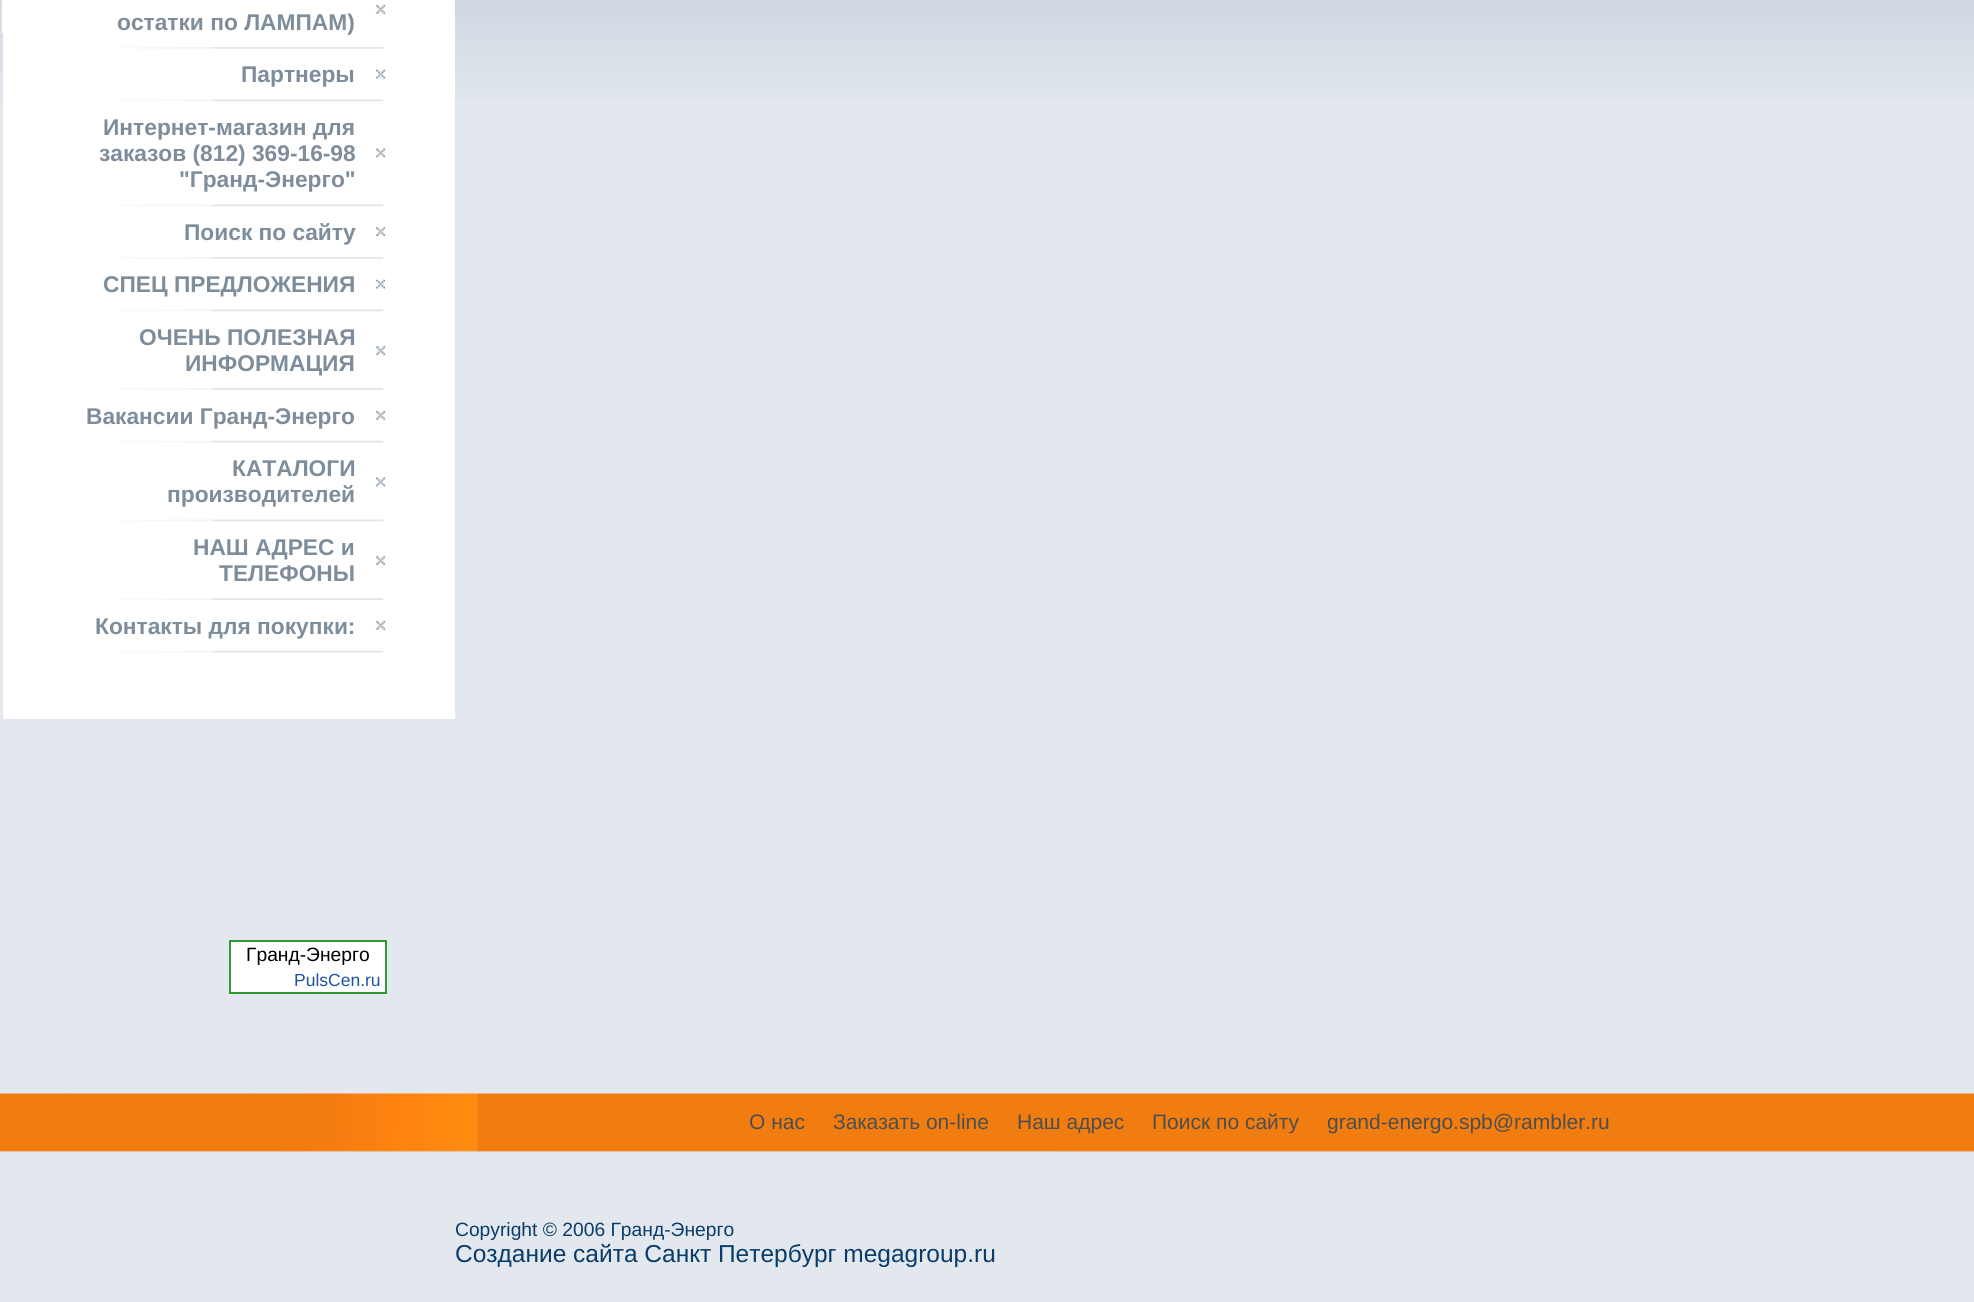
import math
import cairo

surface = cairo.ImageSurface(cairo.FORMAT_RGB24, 1974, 1302)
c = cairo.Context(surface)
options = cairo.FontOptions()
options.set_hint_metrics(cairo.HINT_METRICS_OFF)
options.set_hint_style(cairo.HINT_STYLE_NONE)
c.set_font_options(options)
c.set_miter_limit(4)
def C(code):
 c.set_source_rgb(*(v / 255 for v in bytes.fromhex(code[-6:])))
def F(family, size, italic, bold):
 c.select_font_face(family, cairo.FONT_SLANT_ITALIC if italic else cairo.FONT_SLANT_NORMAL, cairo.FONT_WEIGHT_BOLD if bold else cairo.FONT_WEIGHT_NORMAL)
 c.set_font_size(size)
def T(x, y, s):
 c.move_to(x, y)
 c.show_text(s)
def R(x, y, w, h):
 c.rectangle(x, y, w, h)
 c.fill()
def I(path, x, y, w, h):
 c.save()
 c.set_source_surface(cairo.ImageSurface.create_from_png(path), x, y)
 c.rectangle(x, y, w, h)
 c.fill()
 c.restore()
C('e3e8ee')
c.paint()
I('1.png',0,0,1974,98)
I('2.png',635,1093,1339,59)
C('ffffff')
R(3,0,452,719)
I('3.png',1,0,2,33)
I('4.png',120,47,264,2)
I('5.png',376,5,9,9)
F('Liberation Sans',22.75,0,1)
C('7e8d9b')
T(117,30,'остатки по ЛАМПАМ)')
I('6.png',120,99,264,3)
I('7.png',376,69,9,10)
T(241,82,'Партнеры')
I('6.png',120,204,264,3)
I('8.png',376,148,9,10)
T(103,135,'Интернет-магазин для')
T(99,161,'заказов (812) 369-16-98')
T(179,187,'"Гранд-Энерго"')
I('4.png',120,257,264,2)
I('9.png',376,227,9,9)
T(184,240,'Поиск по сайту')
I('6.png',120,309,264,3)
I('7.png',376,279,9,10)
T(103,292,'СПЕЦ ПРЕДЛОЖЕНИЯ')
I('10.png',120,388,264,2)
I('9.png',376,346,9,9)
T(139,345,'ОЧЕНЬ ПОЛЕЗНАЯ')
T(185,371,'ИНФОРМАЦИЯ')
I('11.png',120,440,264,3)
I('5.png',376,411,9,9)
T(86,424,'Вакансии Гранд-Энерго')
I('6.png',120,519,264,3)
I('8.png',376,477,9,10)
T(232,476,'КАТАЛОГИ')
T(167,502,'производителей')
I('10.png',120,598,264,2)
I('9.png',376,556,9,9)
T(193,555,'НАШ АДРЕС и')
T(219,581,'ТЕЛЕФОНЫ')
I('11.png',120,650,264,3)
I('5.png',376,621,9,9)
T(95,634,'Контакты для покупки:')
C('ffffff')
c.rectangle(230,941,156,52)
c.fill_preserve()
C('339933')
c.stroke()
F('Liberation Sans',19.25,0,0)
C('000000')
T(246,961,'Гранд-Энерго')
F('Liberation Sans',17.5,0,0)
C('1c53a2')
T(294,986,'PulsCen.ru')
I('12.png',0,1093,635,59)
C('e8bf9a')
R(1061,1151,913,1)
F('Liberation Sans',21,0,0)
C('4e4e4e')
T(749,1129,'О нас')
T(833,1129,'Заказать on-line')
T(1017,1129,'Наш адрес')
T(1152,1129,'Поиск по сайту')
T(1327,1129,'grand-energo.spb@rambler.ru')
F('Liberation Sans',19.25,0,0)
C('093b6b')
T(455,1236,'Copyright © 2006 Гранд-Энерго')
F('Liberation Sans',24.5,0,0)
T(455,1262,'Создание сайта Санкт Петербург megagroup.ru')
surface.write_to_png('o.png')
